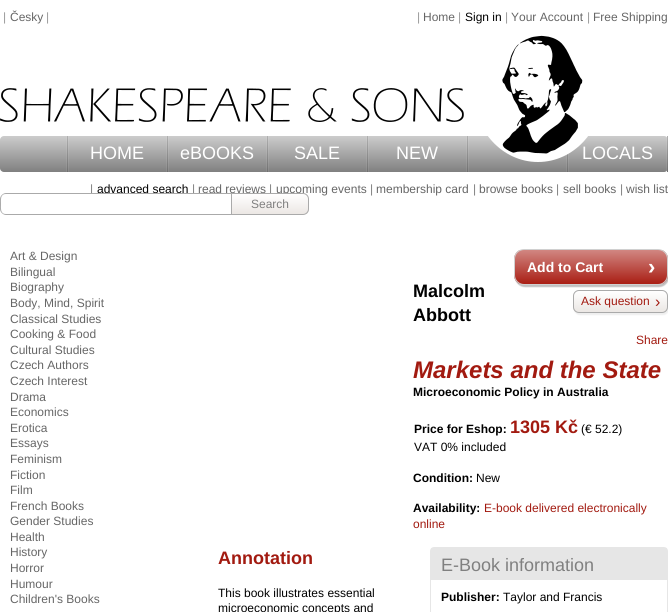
import math
import cairo

surface = cairo.ImageSurface(cairo.FORMAT_RGB24, 668, 612)
c = cairo.Context(surface)
options = cairo.FontOptions()
options.set_hint_metrics(cairo.HINT_METRICS_OFF)
options.set_hint_style(cairo.HINT_STYLE_NONE)
c.set_font_options(options)
c.set_miter_limit(4)
def C(code):
 c.set_source_rgb(*(v / 255 for v in bytes.fromhex(code[-6:])))
def F(family, size, italic, bold):
 c.select_font_face(family, cairo.FONT_SLANT_ITALIC if italic else cairo.FONT_SLANT_NORMAL, cairo.FONT_WEIGHT_BOLD if bold else cairo.FONT_WEIGHT_NORMAL)
 c.set_font_size(size)
def T(x, y, s):
 c.move_to(x, y)
 c.show_text(s)
def R(x, y, w, h):
 c.rectangle(x, y, w, h)
 c.fill()
def Q(x, y, w, h, r):
 c.new_sub_path()
 for i, (u, v) in enumerate([(x + w - r, y + h - r), (x + r, y + h - r), (x + r, y + r), (x + w - r, y + r)]):
  c.arc(u, v, r, i * math.pi / 2, (i + 1) * math.pi / 2)
 c.close_path()
def S(x, y, w, h, r, blur, alpha):
 c.push_group_with_content(cairo.CONTENT_ALPHA)
 c.set_operator(cairo.OPERATOR_SOURCE)
 for i in range(15, -16, -2):
  e = blur * i / 6
  if min(w, h) + 2 * e > 0:
   c.set_source_rgba(0, 0, 0, alpha * math.erfc((i - 1) / 8.5) / 2)
   Q(x - e, y - e, w + 2 * e, h + 2 * e, max(0, min(r + e + blur * .6, min(w, h) / 2 + e)))
   c.fill()
 c.mask(c.pop_group())
def I(path, x, y, w, h):
 c.save()
 c.set_source_surface(cairo.ImageSurface.create_from_png(path), x, y)
 c.rectangle(x, y, w, h)
 c.fill()
 c.restore()
C('ffffff')
c.paint()
F('Liberation Sans',12,0,0)
C('999999')
T(3,21,'|')
C('666666')
T(10,21,'Česky')
C('999999')
T(46,21,'|')
T(417,21,'|')
C('666666')
T(423,21,'Home')
C('999999')
T(458,21,'|')
C('000000')
T(465,21,'Sign in')
C('999999')
T(505,21,'|')
C('666666')
T(511,21,'Your Account')
C('999999')
T(587,21,'|')
C('666666')
T(593,21,'Free Shipping')
I('1.png',0,88,464,34)
gradient = cairo.LinearGradient(334,136,334,172)
gradient.add_color_stop_rgba(0,0.8,0.8,0.8,1)
gradient.add_color_stop_rgba(1,0.502,0.502,0.502,1)
c.set_source(gradient)
Q(0,136,668,36,4)
c.fill()
C('ffffff')
S(567,136,1,36,0,.5,.25)
gradient = cairo.LinearGradient(568,136,568,172)
gradient.add_color_stop_rgba(0,0.69,0.69,0.69,1)
gradient.add_color_stop_rgba(1,0.439,0.439,0.439,1)
c.set_source(gradient)
R(567,154,1,18)
F('Liberation Sans',18,0,0)
C('ffffff')
T(582,159,'LOCALS')
I('2.png',488,35,100,127)
C('ffffff')
S(67,136,1,36,0,.5,.25)
gradient = cairo.LinearGradient(68,136,68,172)
gradient.add_color_stop_rgba(0,0.69,0.69,0.69,1)
gradient.add_color_stop_rgba(1,0.439,0.439,0.439,1)
c.set_source(gradient)
R(67,136,1,36)
C('ffffff')
T(90,159,'HOME')
C('ffffff')
S(167,136,1,36,0,.5,.25)
gradient = cairo.LinearGradient(168,136,168,172)
gradient.add_color_stop_rgba(0,0.69,0.69,0.69,1)
gradient.add_color_stop_rgba(1,0.439,0.439,0.439,1)
c.set_source(gradient)
R(167,136,1,36)
C('ffffff')
T(180,159,'eBOOKS')
C('ffffff')
S(267,136,1,36,0,.5,.25)
gradient = cairo.LinearGradient(268,136,268,172)
gradient.add_color_stop_rgba(0,0.69,0.69,0.69,1)
gradient.add_color_stop_rgba(1,0.439,0.439,0.439,1)
c.set_source(gradient)
R(267,136,1,36)
C('ffffff')
T(294,159,'SALE')
C('ffffff')
S(367,136,1,36,0,.5,.25)
gradient = cairo.LinearGradient(368,136,368,172)
gradient.add_color_stop_rgba(0,0.69,0.69,0.69,1)
gradient.add_color_stop_rgba(1,0.439,0.439,0.439,1)
c.set_source(gradient)
R(367,136,1,36)
C('ffffff')
T(396,159,'NEW')
C('ffffff')
S(467,136,1,36,0,.5,.25)
gradient = cairo.LinearGradient(468,136,468,172)
gradient.add_color_stop_rgba(0,0.69,0.69,0.69,1)
gradient.add_color_stop_rgba(1,0.439,0.439,0.439,1)
c.set_source(gradient)
R(467,136,1,36)
C('ffffff')
S(667,136,1,36,0,.5,.25)
gradient = cairo.LinearGradient(668,136,668,172)
gradient.add_color_stop_rgba(0,0.69,0.69,0.69,1)
gradient.add_color_stop_rgba(1,0.439,0.439,0.439,1)
c.set_source(gradient)
R(667,136,1,36)
F('Liberation Sans',12,0,0)
C('808080')
T(90,193,'|')
C('000000')
T(97,193,'advanced search')
C('808080')
T(192,193,'|')
C('666666')
T(198,193,'read reviews')
C('808080')
T(269,193,'|')
C('666666')
T(276,193,'upcoming events')
C('808080')
T(370,193,'|')
C('666666')
T(376,193,'membership card')
C('808080')
T(473,193,'|')
C('666666')
T(479,193,'browse books')
C('808080')
T(556,193,'|')
C('666666')
T(563,193,'sell books')
C('808080')
T(620,193,'|')
C('666666')
T(626,193,'wish list')
C('ffffff')
R(91,193,208,3)
C('aaaaaa')
c.set_fill_rule(cairo.FILL_RULE_EVEN_ODD)
c.new_path()
c.move_to(6,193)
c.line_to(231,193)
c.line_to(231,215)
c.line_to(6,215)
c.curve_to(3,215,0,212,0,209)
c.line_to(0,199)
c.curve_to(0,196,3,193,6,193)
c.close_path()
c.move_to(6,194)
c.line_to(231,194)
c.line_to(231,214)
c.line_to(6,214)
c.curve_to(0,214,1,208,1,204)
c.curve_to(1,200,0,194,6,194)
c.close_path()
c.fill()
c.save()
c.set_fill_rule(cairo.FILL_RULE_WINDING)
c.new_path()
c.move_to(231,193)
c.line_to(303,193)
c.curve_to(306.5,193,309,195.5,309,199)
c.line_to(309,209)
c.curve_to(309,212.5,306.5,215,303,215)
c.line_to(231,215)
c.close_path()
c.clip()
gradient = cairo.LinearGradient(270,194,270,214)
gradient.add_color_stop_rgba(0,1,1,1,1)
gradient.add_color_stop_rgba(1,0.922,0.906,0.894,1)
c.set_source(gradient)
R(232,194,77,20)
c.restore()
c.new_path()
c.move_to(231.5,193.5)
c.line_to(303,193.5)
c.curve_to(306,193.5,308.5,196,308.5,199)
c.line_to(308.5,209)
c.curve_to(308.5,212,306,214.5,303,214.5)
c.line_to(231.5,214.5)
c.close_path()
c.set_line_width(1)
c.stroke()
C('808080')
T(251,208,'Search')
C('666666')
T(10,260,'Art & Design')
T(10,276,'Bilingual')
T(10,291,'Biography')
T(10,307,'Body, Mind, Spirit')
T(10,323,'Classical Studies')
T(10,338,'Cooking & Food')
T(10,354,'Cultural Studies')
T(10,369,'Czech Authors')
T(10,385,'Czech Interest')
T(10,401,'Drama')
T(10,416,'Economics')
T(10,432,'Erotica')
T(10,447,'Essays')
T(10,463,'Feminism')
T(10,479,'Fiction')
T(10,494,'Film')
T(10,510,'French Books')
T(10,525,'Gender Studies')
T(10,541,'Health')
T(10,556,'History')
T(10,572,'Horror')
T(10,588,'Humour')
T(10,603,'Children\'s Books')
C('000000')
S(515,251,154,36,10,.5,.25)
c.save()
c.set_fill_rule(cairo.FILL_RULE_WINDING)
Q(514,249,154,36,10)
c.clip()
gradient = cairo.LinearGradient(591,250,591,284)
gradient.add_color_stop_rgba(0,0.82,0.529,0.51,1)
gradient.add_color_stop_rgba(1,0.663,0.118,0.078,1)
c.set_source(gradient)
R(514,250,154,34)
c.restore()
Q(514.5,249.5,153,35,9.5)
C('d0d0d0')
c.stroke()
F('Liberation Sans',14,0,1)
C('ffffff')
T(527,272,'Add to Cart')
F('Liberation Sans',22,0,1)
T(648,274,'›')
C('efefef')
S(574,292,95,23,6,.5,1)
c.save()
c.set_fill_rule(cairo.FILL_RULE_WINDING)
Q(573,290,95,23,6)
c.clip()
gradient = cairo.LinearGradient(621,291,621,312)
gradient.add_color_stop_rgba(0,1,1,1,1)
gradient.add_color_stop_rgba(1,0.922,0.906,0.894,1)
c.set_source(gradient)
R(573,291,95,21)
c.restore()
Q(573.5,290.5,94,22,5.5)
C('aaaaaa')
c.stroke()
F('Liberation Sans',12,0,0)
C('a21a10')
T(581,305,'Ask question')
F('Liberation Sans',16,0,0)
T(655,307,'›')
F('Liberation Sans',12,0,0)
T(636,344,'Share')
F('Liberation Sans',18,0,1)
C('000000')
T(413,297,'Malcolm')
T(413,321,'Abbott')
F('Liberation Sans',24,1,1)
C('a21a10')
T(413,378,'Markets and the State')
F('Liberation Sans',12,0,1)
C('000000')
T(413,396,'Microeconomic Policy in Australia')
T(414,433,'Price for Eshop:')
F('Liberation Sans',18,0,1)
C('a21a10')
T(510,433,'1305 Kč')
F('Liberation Sans',12,0,0)
C('000000')
T(581,433,'(€ 52.2)')
T(414,451,'VAT 0% included')
F('Liberation Sans',12,0,1)
T(413,482,'Condition:')
F('Liberation Sans',12,0,0)
T(476,482,'New')
F('Liberation Sans',12,0,1)
T(413,512,'Availability:')
F('Liberation Sans',12,0,0)
C('a21a10')
T(484,512,'E-book delivered electronically')
T(413,528,'online')
F('Liberation Sans',18,0,1)
T(218,564,'Annotation')
F('Liberation Sans',12,0,0)
C('000000')
T(218,597,'This book illustrates essential')
T(218,612,'microeconomic concepts and')
Q(430.5,547.5,237,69,3.5)
C('e6e6e6')
c.stroke()
R(431,548,236,32)
F('Liberation Sans',18,0,0)
C('808080')
T(441,571,'E-Book information')
F('Liberation Sans',12,0,1)
C('000000')
T(441,601,'Publisher:')
F('Liberation Sans',12,0,0)
T(503,601,'Taylor and Francis')
surface.write_to_png('o.png')
